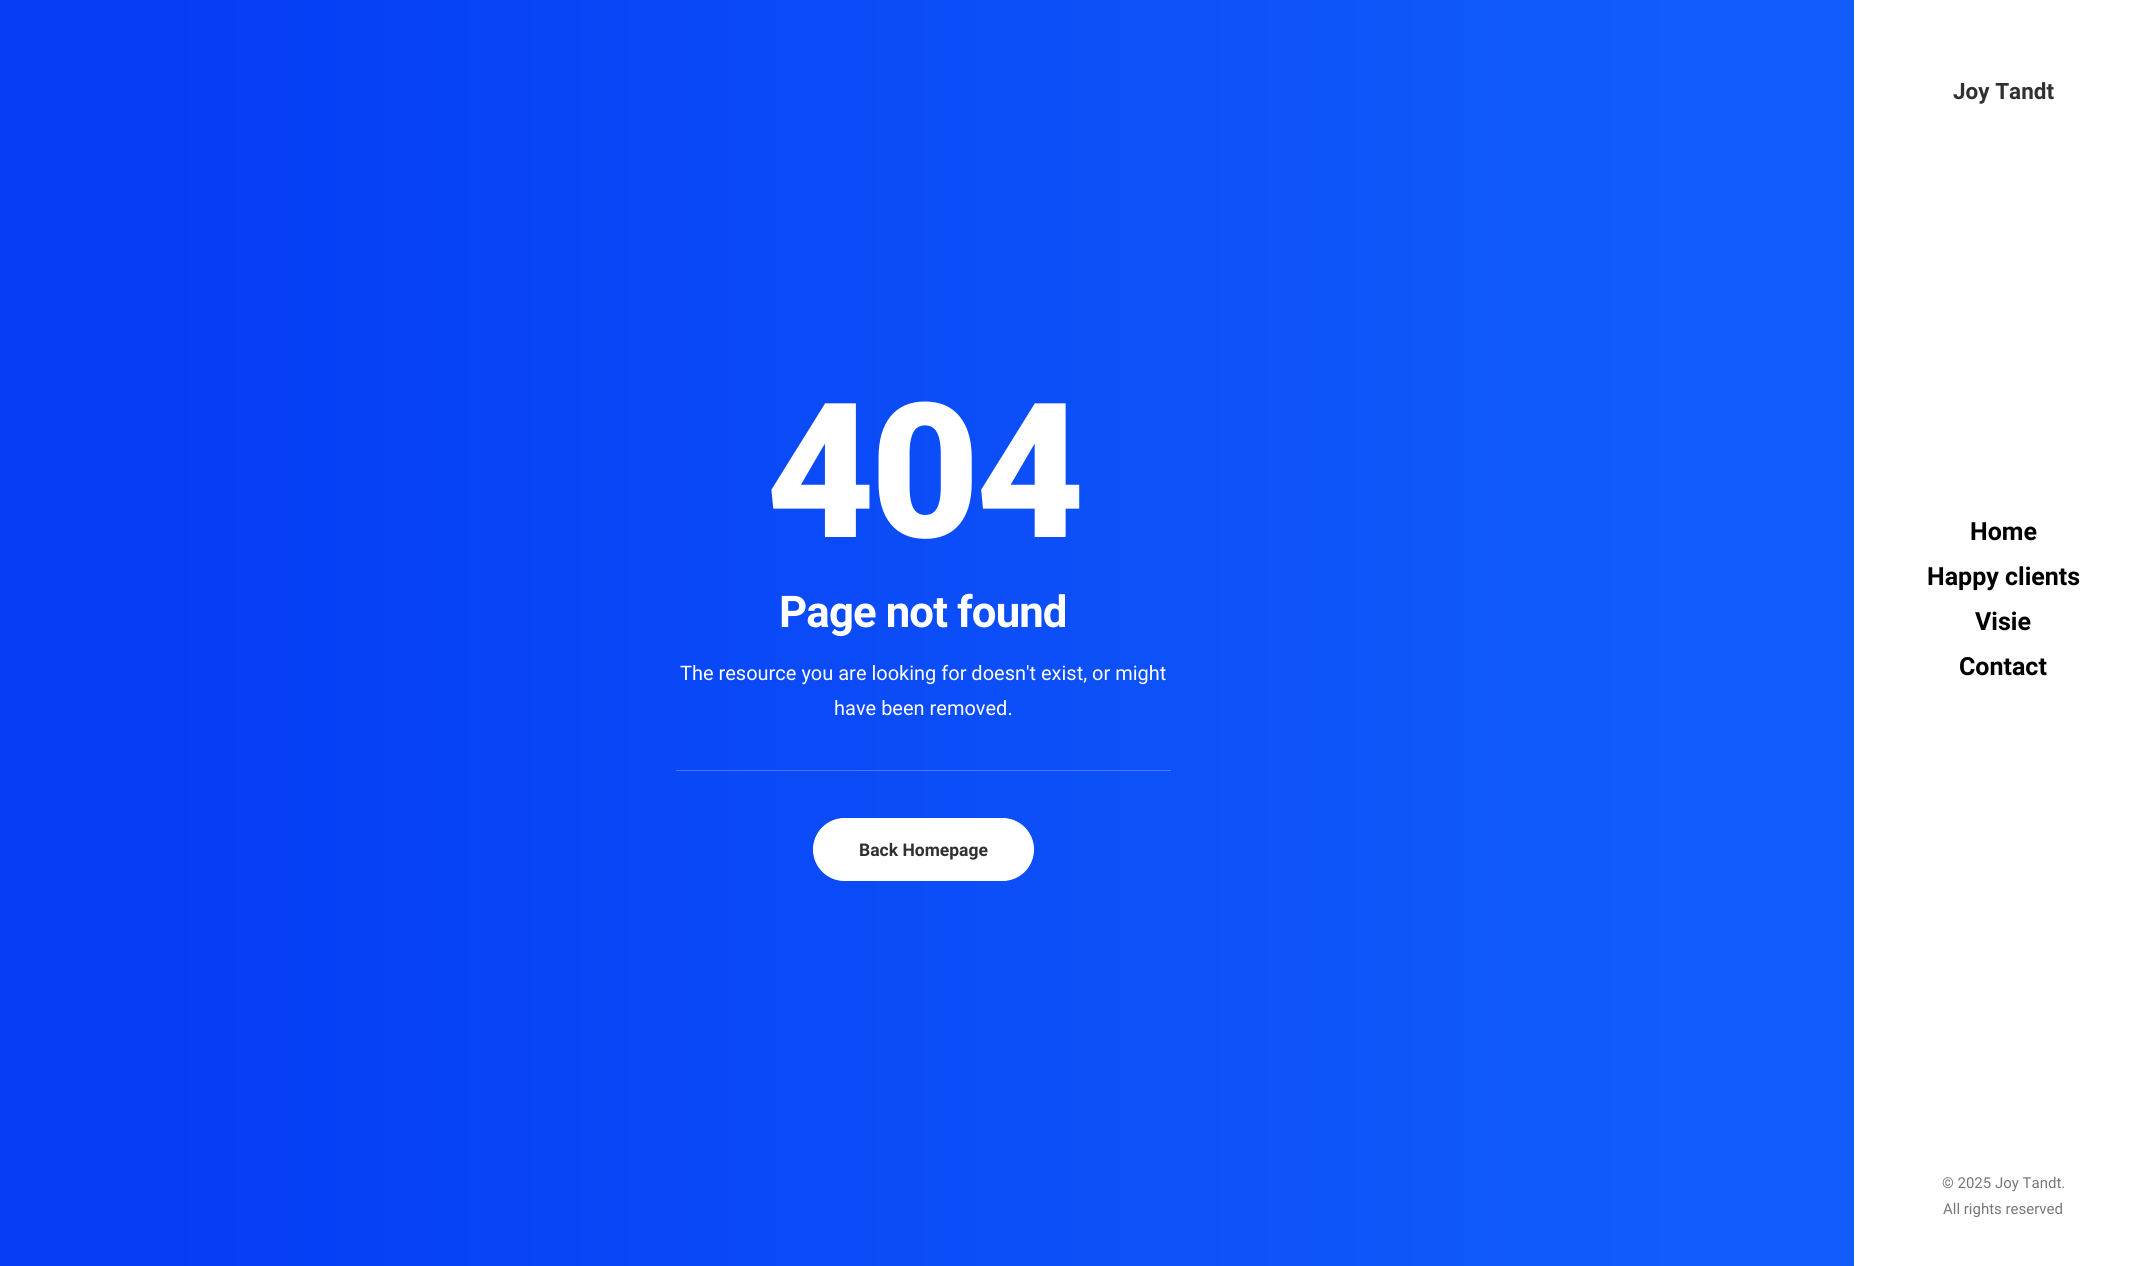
import math
import cairo

surface = cairo.ImageSurface(cairo.FORMAT_RGB24, 2146, 1266)
c = cairo.Context(surface)
options = cairo.FontOptions()
options.set_hint_metrics(cairo.HINT_METRICS_OFF)
options.set_hint_style(cairo.HINT_STYLE_NONE)
c.set_font_options(options)
c.set_miter_limit(4)
def C(code):
 c.set_source_rgb(*(v / 255 for v in bytes.fromhex(code[-6:])))
def F(family, size, italic, bold):
 c.select_font_face(family, cairo.FONT_SLANT_ITALIC if italic else cairo.FONT_SLANT_NORMAL, cairo.FONT_WEIGHT_BOLD if bold else cairo.FONT_WEIGHT_NORMAL)
 c.set_font_size(size)
def T(x, y, s):
 c.move_to(x, y)
 c.show_text(s)
def L(x, y, s, letter, word):
 c.move_to(x, y)
 for ch in s:
  c.show_text(ch)
  c.rel_move_to(letter + word * (ch == ' '), 0)
def R(x, y, w, h):
 c.rectangle(x, y, w, h)
 c.fill()
def Q(x, y, w, h, r):
 c.new_sub_path()
 for i, (u, v) in enumerate([(x + w - r, y + h - r), (x + r, y + h - r), (x + r, y + r), (x + w - r, y + r)]):
  c.arc(u, v, r, i * math.pi / 2, (i + 1) * math.pi / 2)
 c.close_path()
C('ffffff')
c.paint()
gradient = cairo.LinearGradient(1854,633,-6.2,633)
gradient.add_color_stop_rgba(.09,0.067,0.361,0.98,1)
gradient.add_color_stop_rgba(.91,0.02,0.239,0.961,1)
c.set_source(gradient)
R(0,0,1854,1266)
gradient = cairo.LinearGradient(1854,633,-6.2,633)
gradient.add_color_stop_rgba(.09,0.302,0.522,0.984,1)
gradient.add_color_stop_rgba(.91,0.267,0.431,0.973,1)
c.set_source(gradient)
R(676,770,495,1)
F('Roboto Black',188,0,0)
C('ffffff')
L(766,537,'404',-4,0)
F('Roboto',43.75,0,1)
L(779,627,'Page not found',-.9,0)
F('Roboto',20,0,0)
T(680,680,'The resource you are looking for doesn\'t exist, or might')
T(834,715,'have been removed.')
Q(813.5,818.5,220,62,31)
c.fill_preserve()
c.set_line_width(1)
c.stroke()
F('Roboto',17.5,0,1)
C('303133')
T(859,856,'Back Homepage')
F('Roboto',22.5,0,1)
T(1953,99,'Joy Tandt')
F('Roboto',25,0,1)
C('000000')
T(1970,540,'Home')
T(1927,585,'Happy clients')
T(1975,630,'Visie')
T(1959,675,'Contact')
F('Roboto',15,0,0)
C('777777')
T(1942,1188,'© 2025 Joy Tandt.')
T(1943,1214,'All rights reserved')
surface.write_to_png('o.png')
